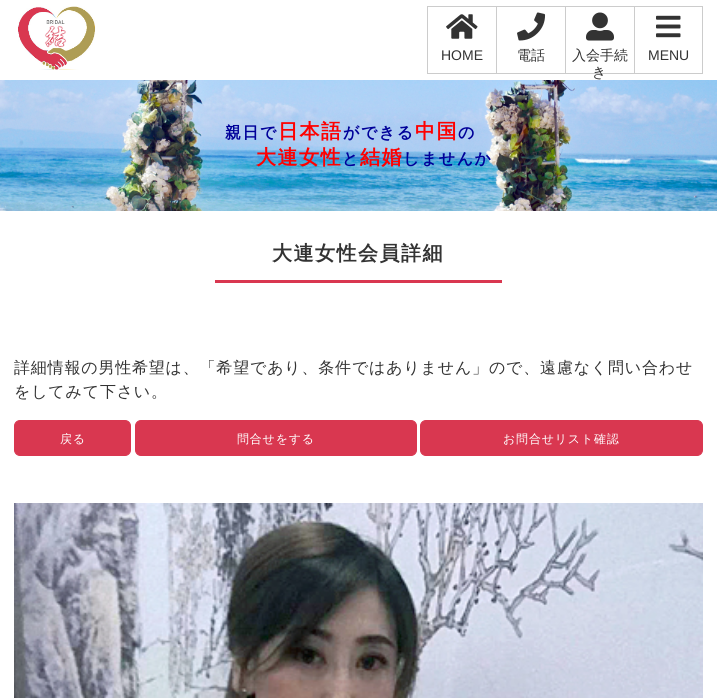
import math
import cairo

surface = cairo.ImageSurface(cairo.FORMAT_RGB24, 717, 698)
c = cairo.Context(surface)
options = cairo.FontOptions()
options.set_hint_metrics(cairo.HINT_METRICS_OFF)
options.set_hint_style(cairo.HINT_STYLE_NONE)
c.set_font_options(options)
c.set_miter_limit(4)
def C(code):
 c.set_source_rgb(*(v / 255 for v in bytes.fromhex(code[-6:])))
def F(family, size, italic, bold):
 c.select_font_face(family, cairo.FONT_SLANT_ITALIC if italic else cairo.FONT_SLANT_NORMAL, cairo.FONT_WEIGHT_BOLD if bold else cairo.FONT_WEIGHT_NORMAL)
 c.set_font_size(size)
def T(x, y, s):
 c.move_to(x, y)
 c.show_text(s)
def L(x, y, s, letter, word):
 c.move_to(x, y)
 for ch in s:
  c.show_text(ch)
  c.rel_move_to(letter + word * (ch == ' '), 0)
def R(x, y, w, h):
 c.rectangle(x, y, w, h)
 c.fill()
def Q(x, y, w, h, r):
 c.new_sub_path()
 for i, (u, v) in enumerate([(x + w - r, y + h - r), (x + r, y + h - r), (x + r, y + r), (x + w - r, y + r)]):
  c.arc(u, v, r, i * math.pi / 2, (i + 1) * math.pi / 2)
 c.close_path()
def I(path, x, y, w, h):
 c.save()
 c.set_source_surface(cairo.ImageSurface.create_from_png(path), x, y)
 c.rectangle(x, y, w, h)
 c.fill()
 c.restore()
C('ffffff')
c.paint()
I('1.png',18,6,78,64)
C('cccccc')
R(427,6,207,1)
R(427,73,207,1)
R(427,6,1,68)
I('2.png',446,14,32,25)
F('Liberation Sans',14,0,0)
C('333333')
T(441,60,'HOME')
C('cccccc')
R(496,6,1,68)
I('3.png',517,12,29,29)
F('WenQuanYi Zen Hei Medium',14,0,0)
C('333333')
T(517,60,'電話')
C('cccccc')
R(565,6,1,68)
I('4.png',586,12,28,29)
C('333333')
T(572,60,'入会手続')
T(592,77,'き')
c.rectangle(634.5,6.5,68,67)
C('cccccc')
c.set_line_width(1)
c.stroke()
I('5.png',656,15,25,23)
F('Liberation Sans',14,0,0)
C('333333')
T(648,60,'MENU')
I('6.png',0,80,717,131)
F('WenQuanYi Zen Hei',16,0,1)
C('000099')
L(225,138,'親日で',1.5,0)
F('WenQuanYi Zen Hei',20,0,1)
C('ff0000')
L(278,138,'日本語',1.5,0)
F('WenQuanYi Zen Hei',16,0,1)
C('000099')
L(343,138,'ができる',1.5,0)
F('WenQuanYi Zen Hei',20,0,1)
C('ff0000')
L(415,138,'中国',1.5,0)
F('WenQuanYi Zen Hei',16,0,1)
C('000099')
L(458,138,'の',1.5,0)
F('WenQuanYi Zen Hei',20,0,1)
C('ff0000')
L(256,164,'大連女性',1.5,0)
F('WenQuanYi Zen Hei',16,0,1)
C('000099')
L(342,164,'と',1.5,0)
F('WenQuanYi Zen Hei',20,0,1)
C('ff0000')
L(360,164,'結婚',1.5,0)
F('WenQuanYi Zen Hei',16,0,1)
C('000099')
L(403,164,'しませんか',1.5,0)
F('WenQuanYi Zen Hei',20,0,1)
C('333333')
L(272,260,'大連女性会員詳細',1.5,0)
C('d93750')
R(215,280,287,3)
F('WenQuanYi Zen Hei Medium',16,0,0)
C('333333')
L(14,373,'詳細情報の男性希望は、「希望であり、条件ではありません」ので、遠慮なく問い合わせ',.8,0)
L(14,397,'をしてみて下さい。',.8,0)
C('d93750')
Q(14.5,420.5,116,35,5.5)
c.fill_preserve()
c.stroke()
F('WenQuanYi Zen Hei Medium',12,0,0)
C('ffffff')
L(60,443,'戻る',.8,0)
C('d93750')
Q(135.5,420.5,281,35,5.5)
c.fill_preserve()
c.stroke()
C('ffffff')
L(237,443,'問合せをする',.8,0)
C('d93750')
Q(420.5,420.5,282,35,5.5)
c.fill_preserve()
c.stroke()
C('ffffff')
L(503,443,'お問合せリスト確認',.8,0)
I('7.png',14,503,689,195)
surface.write_to_png('o.png')
